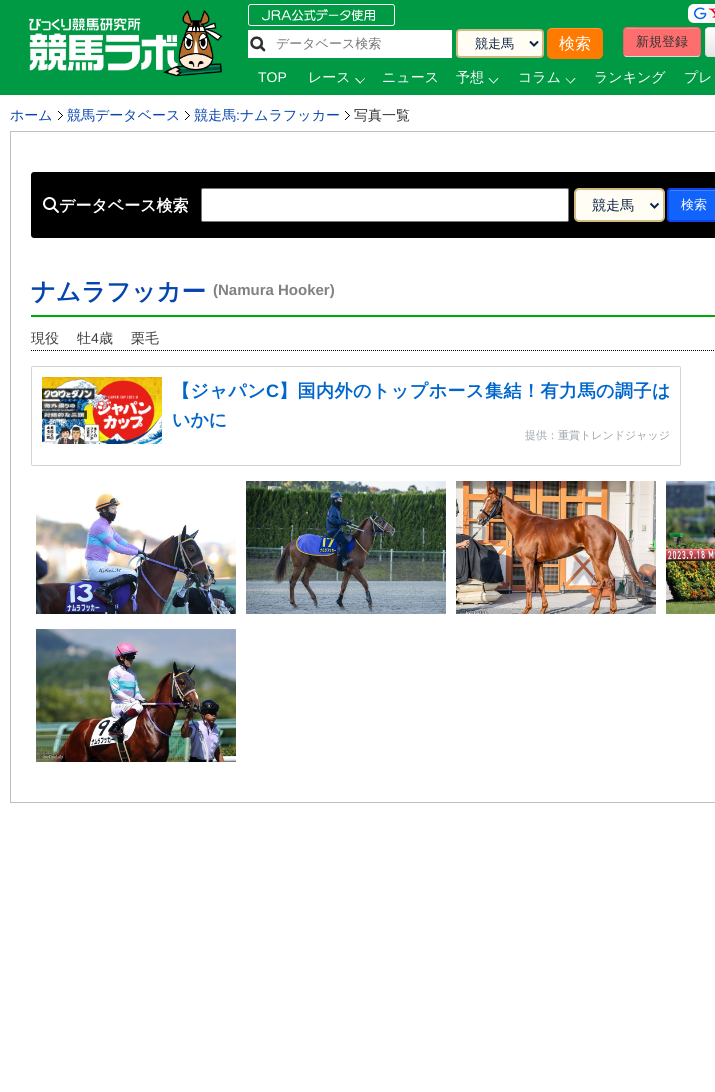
import math
import cairo

surface = cairo.ImageSurface(cairo.FORMAT_RGB24, 715, 1092)
c = cairo.Context(surface)
options = cairo.FontOptions()
options.set_hint_metrics(cairo.HINT_METRICS_OFF)
options.set_hint_style(cairo.HINT_STYLE_NONE)
c.set_font_options(options)
c.set_miter_limit(4)
def C(code):
 c.set_source_rgb(*(v / 255 for v in bytes.fromhex(code[-6:])))
def F(family, size, italic, bold):
 c.select_font_face(family, cairo.FONT_SLANT_ITALIC if italic else cairo.FONT_SLANT_NORMAL, cairo.FONT_WEIGHT_BOLD if bold else cairo.FONT_WEIGHT_NORMAL)
 c.set_font_size(size)
def T(x, y, s):
 c.move_to(x, y)
 c.show_text(s)
def L(x, y, s, letter, word):
 c.move_to(x, y)
 for ch in s:
  c.show_text(ch)
  c.rel_move_to(letter + word * (ch == ' '), 0)
def R(x, y, w, h):
 c.rectangle(x, y, w, h)
 c.fill()
def Q(x, y, w, h, r):
 c.new_sub_path()
 for i, (u, v) in enumerate([(x + w - r, y + h - r), (x + r, y + h - r), (x + r, y + r), (x + w - r, y + r)]):
  c.arc(u, v, r, i * math.pi / 2, (i + 1) * math.pi / 2)
 c.close_path()
def I(path, x, y, w, h):
 c.save()
 c.set_source_surface(cairo.ImageSurface.create_from_png(path), x, y)
 c.rectangle(x, y, w, h)
 c.fill()
 c.restore()
C('ffffff')
c.paint()
C('009944')
R(0,0,715,95)
I('1.png',28,10,195,67)
I('2.png',248,4,147,22)
C('ffffff')
R(248,30,204,28)
I('3.png',250,36,16,16)
F('WenQuanYi Zen Hei Medium',13,0,0)
C('757575')
T(276,48,'データベース検索')
C('fffdf4')
Q(457,30,86,27,3)
c.fill_preserve()
C('d2ba85')
c.stroke()
c.new_path()
c.move_to(530,41.5)
c.line_to(534,45.5)
c.line_to(538,41.5)
C('0c2245')
c.stroke()
T(475,48,'競走馬')
C('ff7a00')
Q(547,28,56,31,5)
c.fill()
c.set_source_rgba(1,1,1,0.2)
c.new_path()
c.move_to(552,29)
c.line_to(590,29)
c.curve_to(600,29,603,29,603,34)
c.curve_to(603,26,597,28,590,28)
c.line_to(560,28)
c.curve_to(554,28,547,26,547,34)
c.curve_to(547,31,549,29,552,29)
c.close_path()
c.fill()
F('WenQuanYi Zen Hei Medium',16,0,0)
C('ffffff')
T(559,49,'検索')
I('4.png',688,4,27,19)
C('ff6e6e')
Q(623,27,78,30,4)
c.fill()
C('ff8b8b')
c.new_path()
c.move_to(627,29)
c.line_to(697,29)
c.curve_to(699,29,700,30,700,32)
c.curve_to(700,25,689,28,685,28)
c.line_to(639,28)
c.curve_to(635,28,624,25,624,32)
c.curve_to(624,30,625,29,627,29)
c.close_path()
c.fill()
c.new_path()
c.move_to(699.5,55.5)
c.curve_to(699,56,698,56.5,697,56.5)
c.line_to(627,56.5)
c.curve_to(626,56.5,625,56,624.5,55.5)
C('dcdcdc')
c.set_line_width(1)
c.stroke()
c.new_path()
c.move_to(624.5,55.5)
c.curve_to(622.5,53.5,623.5,45,623.5,42)
c.curve_to(623.5,25.5,621,27.5,638.5,27.5)
c.line_to(685.5,27.5)
c.curve_to(703,27.5,700.5,25.5,700.5,42)
c.curve_to(700.5,45,701.5,53.5,699.5,55.5)
c.set_source_rgba(0,0,0,0.1)
c.stroke()
F('WenQuanYi Zen Hei Medium',13,0,0)
C('333333')
T(636,46,'新規登録')
C('f5f5f5')
Q(705,27,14,30,4)
c.fill()
c.save()
Q(705,27,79,30,4)
c.clip()
gradient = cairo.LinearGradient(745,28,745,56)
gradient.add_color_stop_rgba(0,1,1,1,1)
gradient.add_color_stop_rgba(1,0.902,0.902,0.902,1)
c.set_source(gradient)
R(705,28,10,28)
c.restore()
c.new_path()
c.move_to(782.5,55.5)
c.curve_to(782,56,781,56.5,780,56.5)
c.line_to(709,56.5)
c.curve_to(708,56.5,707,56,706.5,55.5)
C('dcdcdc')
c.stroke()
c.new_path()
c.move_to(706.5,55.5)
c.curve_to(704.5,53.5,705.5,45,705.5,42)
c.curve_to(705.5,25,703,27.5,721,27.5)
c.line_to(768,27.5)
c.curve_to(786,27.5,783.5,25,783.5,42)
c.curve_to(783.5,45,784.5,53.5,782.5,55.5)
c.set_source_rgba(0,0,0,0.1)
c.stroke()
F('Liberation Sans',14,0,0)
C('ffffff')
T(258,82,'TOP')
F('WenQuanYi Zen Hei Medium',14,0,0)
T(308,82,'レース')
c.new_path()
c.move_to(364.5,78)
c.line_to(365,78.5)
c.line_to(360,83.5)
c.line_to(359.5,83)
c.close_path()
c.fill()
c.new_path()
c.move_to(356,78)
c.line_to(361,83)
c.line_to(360,83.5)
c.line_to(355,78.5)
c.close_path()
c.fill()
T(382,82,'ニュース')
T(456,82,'予想')
c.new_path()
c.move_to(497.5,78)
c.line_to(498.5,78.5)
c.line_to(493.5,83.5)
c.line_to(493,83)
c.close_path()
c.fill()
c.new_path()
c.move_to(489.5,78)
c.line_to(494,83)
c.line_to(493.5,83.5)
c.line_to(488.5,78.5)
c.close_path()
c.fill()
T(518,82,'コラム')
c.new_path()
c.move_to(574.5,78)
c.line_to(575.5,78.5)
c.line_to(570.5,83.5)
c.line_to(570,83)
c.close_path()
c.fill()
c.new_path()
c.move_to(566,78)
c.line_to(571,83)
c.line_to(570.5,83.5)
c.line_to(565.5,78.5)
c.close_path()
c.fill()
T(594,82,'ランキング')
T(684,82,'プレ')
C('0645ad')
T(10,120,'ホーム')
I('5.png',58,111,5,9)
T(67,120,'競馬データベース')
I('5.png',185,111,5,9)
T(194,120,'競走馬')
F('Liberation Sans',14,0,0)
T(236,120,':')
F('WenQuanYi Zen Hei Medium',14,0,0)
T(240,120,'ナムラフッカー')
I('5.png',345,111,5,9)
C('333333')
T(354,120,'写真一覧')
c.rectangle(10.5,131.5,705,671)
C('c0c0c0')
c.stroke()
C('000000')
Q(31,172,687,66,3)
c.fill()
I('6.png',43,197,16,16)
F('WenQuanYi Zen Hei',16,0,1)
C('ffffff')
T(59,211,'データベース検索')
Q(201.5,188.5,367,33,1.5)
c.fill_preserve()
C('767676')
c.stroke()
C('fffdf4')
Q(575,189,89,32,4)
c.fill_preserve()
C('d2ba85')
c.set_line_width(2)
c.stroke()
c.new_path()
c.move_to(650.5,203.5)
c.line_to(654.5,207.5)
c.line_to(658.5,203.5)
C('0c2245')
c.stroke()
F('WenQuanYi Zen Hei Medium',14,0,0)
T(592,210,'競走馬')
C('1163fb')
Q(667,188,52,34,4)
c.fill()
C('4182fc')
c.new_path()
c.move_to(671,191)
c.line_to(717,191)
c.curve_to(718,191,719,192,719,193)
c.curve_to(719,188,713,190,709,190)
c.line_to(679,190)
c.curve_to(675,190,669,188,669,193)
c.curve_to(669,192,670,191,671,191)
c.close_path()
c.fill()
Q(668,189,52,32,3)
C('0c45e9')
c.stroke()
F('WenQuanYi Zen Hei Medium',13,0,0)
C('ffffff')
T(681,209,'検索')
c.new_path()
c.move_to(31,350.5)
c.line_to(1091,350.5)
C('000000')
c.set_line_width(1)
c.set_dash([1,1])
c.stroke()
C('01a801')
R(31,315,684,2)
F('WenQuanYi Zen Hei',24.5,0,1)
C('0645ad')
T(31,300,'ナムラフッカー')
F('Liberation Sans',15,0,1)
C('818181')
T(213,295,'(Namura Hooker)')
F('WenQuanYi Zen Hei Medium',14,0,0)
C('3d3d3d')
T(31,343,'現役')
T(77,343,'牡')
F('Liberation Sans',14,0,0)
T(91,343,'4')
F('WenQuanYi Zen Hei Medium',14,0,0)
T(99,343,'歳')
T(131,343,'栗毛')
Q(31.5,366.5,649,99,1.5)
C('d3d3d3')
c.set_dash([])
c.stroke()
I('7.png',42,377,120,67)
F('WenQuanYi Zen Hei',18,0,1)
C('0066cc')
L(172,397,'【ジャパン',.5,0)
F('Liberation Sans',18,0,1)
L(266,397,'C',.5,0)
F('WenQuanYi Zen Hei',18,0,1)
L(279,397,'】国内外のトップホース集結！有力馬の調子は',.5,0)
T(172,426,'いかに')
F('WenQuanYi Zen Hei Medium',11,0,0)
C('9aa5ab')
T(525,439,'提供：重賞トレンドジャッジ')
I('8.png',36,491,200,123)
I('9.png',246,481,200,133)
I('10.png',456,481,200,133)
I('11.png',666,481,49,133)
I('12.png',36,629,200,133)
surface.write_to_png('o.png')
